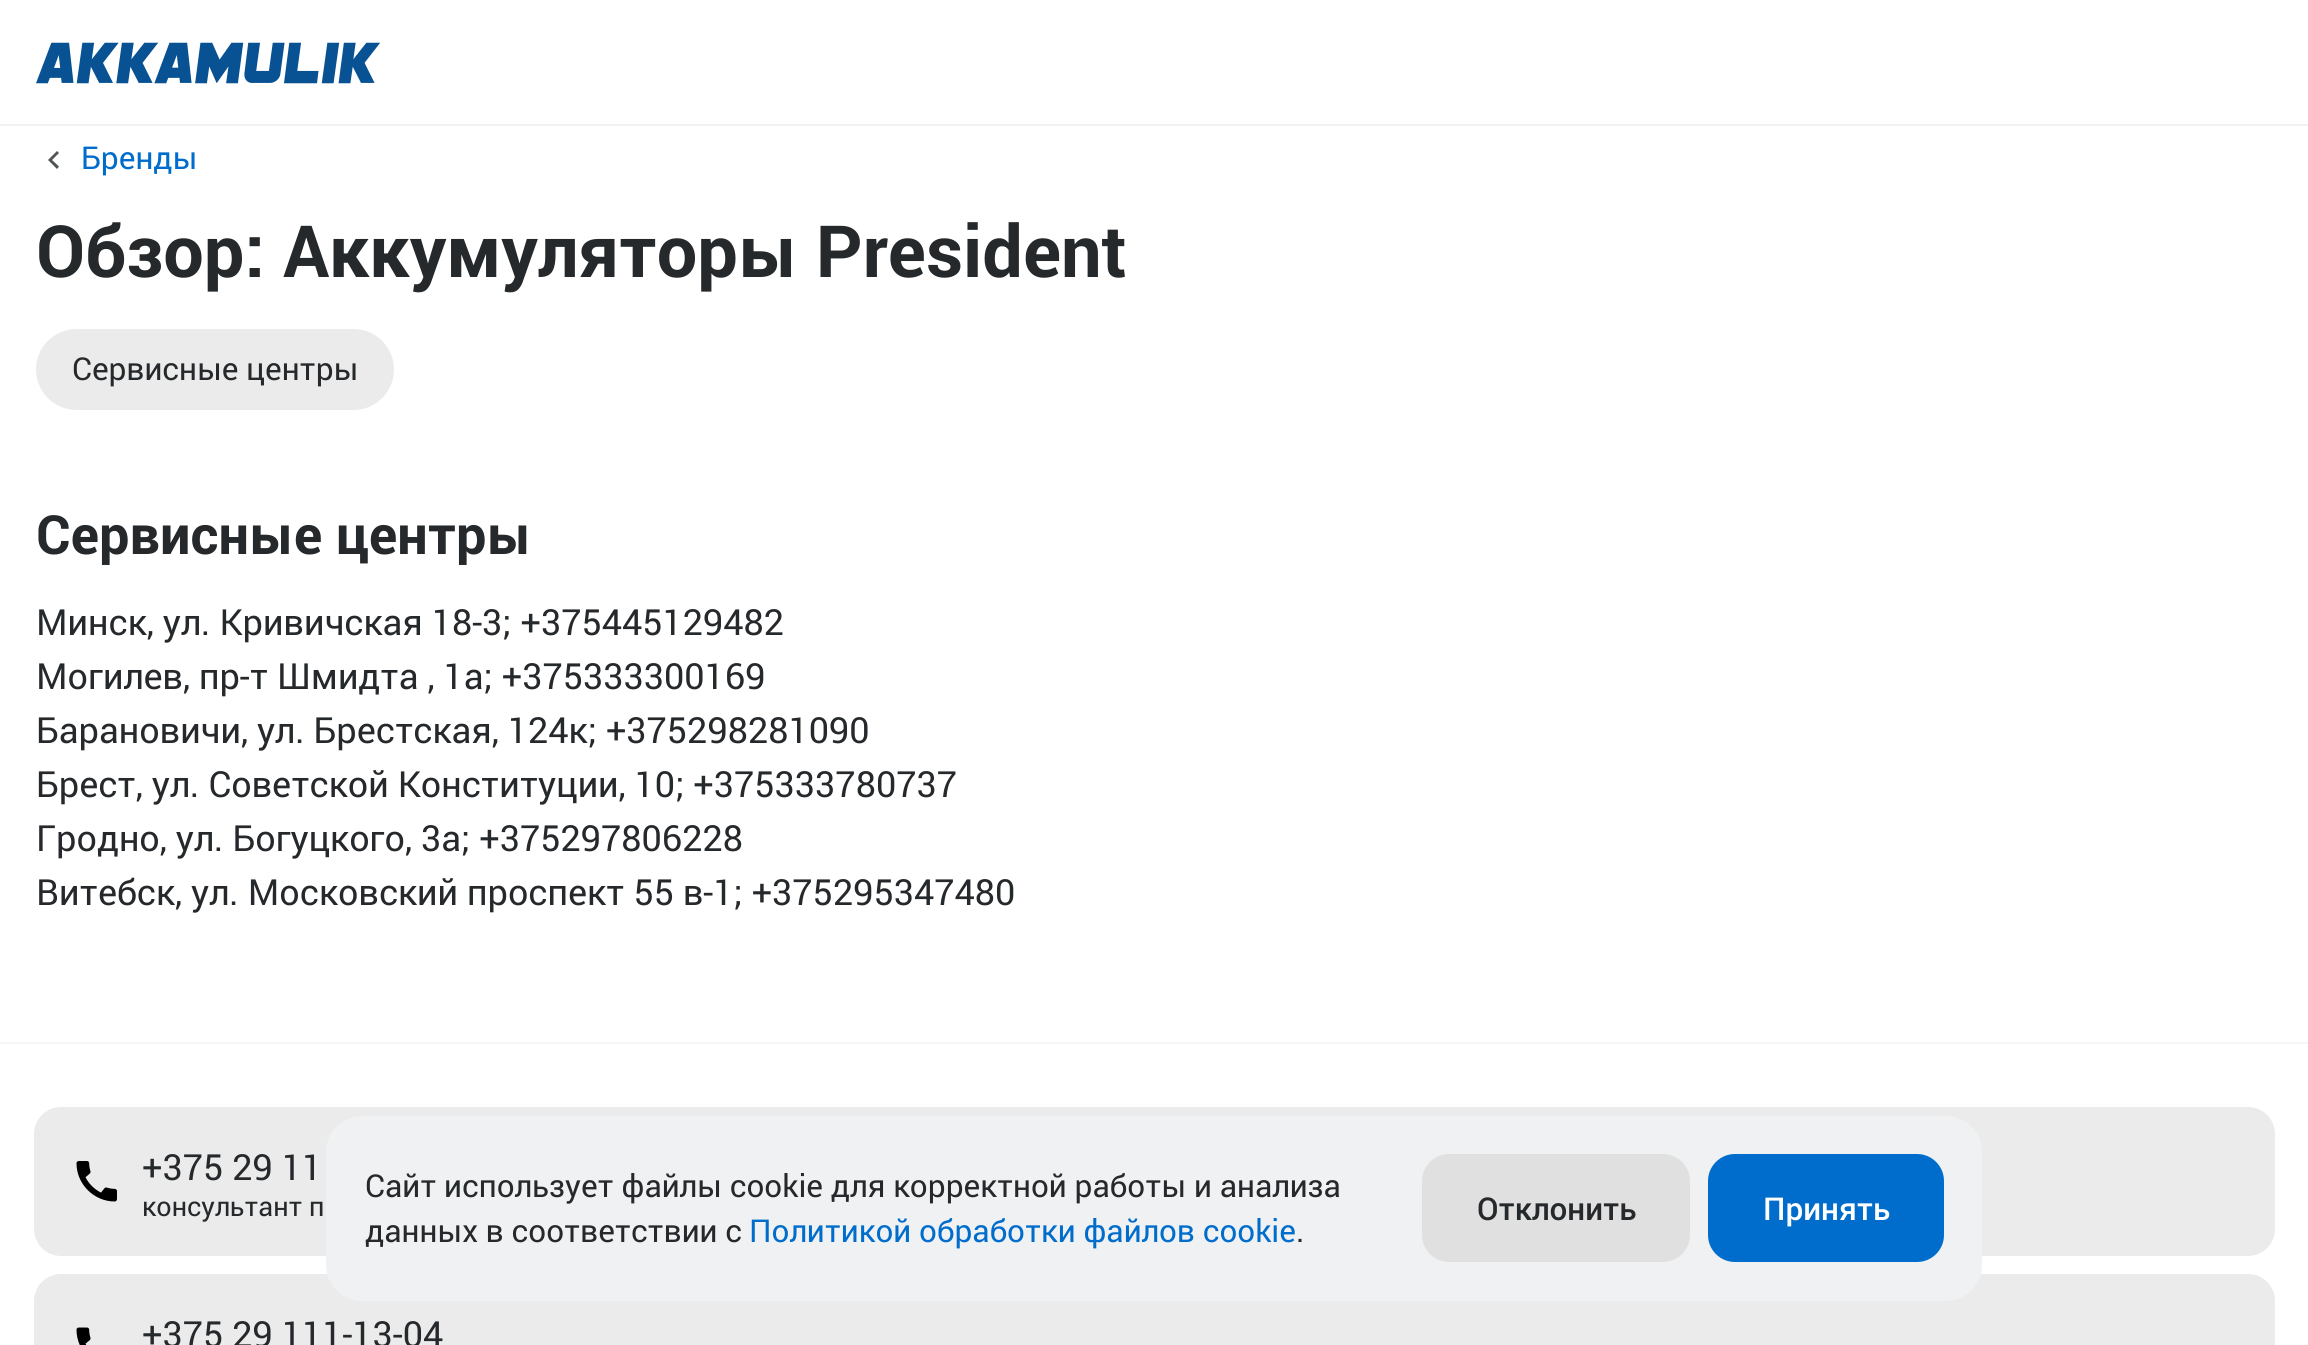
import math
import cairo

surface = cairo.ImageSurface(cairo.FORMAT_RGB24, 2308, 1345)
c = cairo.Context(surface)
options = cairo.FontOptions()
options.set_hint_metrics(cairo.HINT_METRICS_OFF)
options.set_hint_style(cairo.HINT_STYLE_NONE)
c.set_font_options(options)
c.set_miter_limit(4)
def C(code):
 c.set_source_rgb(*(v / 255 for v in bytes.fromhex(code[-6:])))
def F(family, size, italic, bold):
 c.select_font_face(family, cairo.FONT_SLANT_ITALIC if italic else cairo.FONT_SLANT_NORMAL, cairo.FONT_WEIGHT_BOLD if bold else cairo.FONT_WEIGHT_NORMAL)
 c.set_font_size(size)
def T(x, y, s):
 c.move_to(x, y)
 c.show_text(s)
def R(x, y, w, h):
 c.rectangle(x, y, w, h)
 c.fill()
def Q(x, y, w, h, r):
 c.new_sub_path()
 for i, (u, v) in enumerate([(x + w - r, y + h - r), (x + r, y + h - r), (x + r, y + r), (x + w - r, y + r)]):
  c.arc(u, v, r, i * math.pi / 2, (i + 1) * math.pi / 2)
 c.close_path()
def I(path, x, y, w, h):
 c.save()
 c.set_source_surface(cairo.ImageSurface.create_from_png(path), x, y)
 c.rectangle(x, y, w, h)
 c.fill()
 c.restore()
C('ffffff')
c.paint()
C('f0f1f2')
R(0,124,2308,2)
I('1.png',36,42,344,42)
C('515456')
c.new_path()
c.move_to(57,169)
c.line_to(59,166.5)
c.line_to(52,160)
c.line_to(59,153)
c.line_to(57,151)
c.line_to(48,160)
c.close_path()
c.fill()
F('Roboto',31.5,0,0)
C('006dcc')
T(81,169,'Бренды')
F('Roboto',72,0,1)
C('26292c')
T(36,277,'Обзор: Аккумуляторы President')
C('ebebeb')
Q(36,329,358,81,40.5)
c.fill()
F('Roboto',31.5,0,0)
C('26292c')
T(72,380,'Сервисные центры')
F('Roboto',54,0,1)
T(36,554,'Сервисные центры')
F('Roboto',36,0,0)
T(36,635,'Минск, ул. Кривичская 18-3; +375445129482')
T(36,689,'Могилев, пр-т Шмидта , 1а; +375333300169')
T(36,743,'Барановичи, ул. Брестская, 124к; +375298281090')
T(36,797,'Брест, ул. Советской Конституции, 10; +375333780737')
T(36,851,'Гродно, ул. Богуцкого, 3а; +375297806228')
T(36,905,'Витебск, ул. Московский проспект 55 в-1; +375295347480')
C('f5f6f7')
R(0,1042,2308,2)
C('ebebeb')
Q(34,1107,2241,149,27)
c.fill()
I('2.png',76,1161,41,41)
C('26292c')
T(142,1180,'+375 29 11')
F('Roboto',27,0,0)
T(142,1216,'консультант п')
C('ebebeb')
Q(34,1274,2241,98,27)
c.fill()
I('3.png',76,1327,15,18)
F('Roboto',36,0,0)
C('26292c')
T(142,1347,'+375 29 111-13-04')
C('f0f1f2')
Q(327,1117,1654,183,35)
c.fill_preserve()
c.stroke()
F('Roboto',31.5,0,0)
C('26292c')
T(365,1197,'Cайт использует файлы cookie для корректной работы и анализа')
T(365,1242,'данных в соответствии с')
C('006dcc')
T(749,1242,'Политикой обработки файлов cookie')
C('26292c')
T(1296,1242,'.')
C('e0e0e0')
Q(1422,1154,268,108,27)
c.fill()
F('Roboto Medium',31.5,0,0)
C('26292c')
T(1477,1220,'Отклонить')
C('006dcc')
Q(1708,1154,236,108,27)
c.fill()
C('ffffff')
T(1763,1220,'Принять')
surface.write_to_png('o.png')
